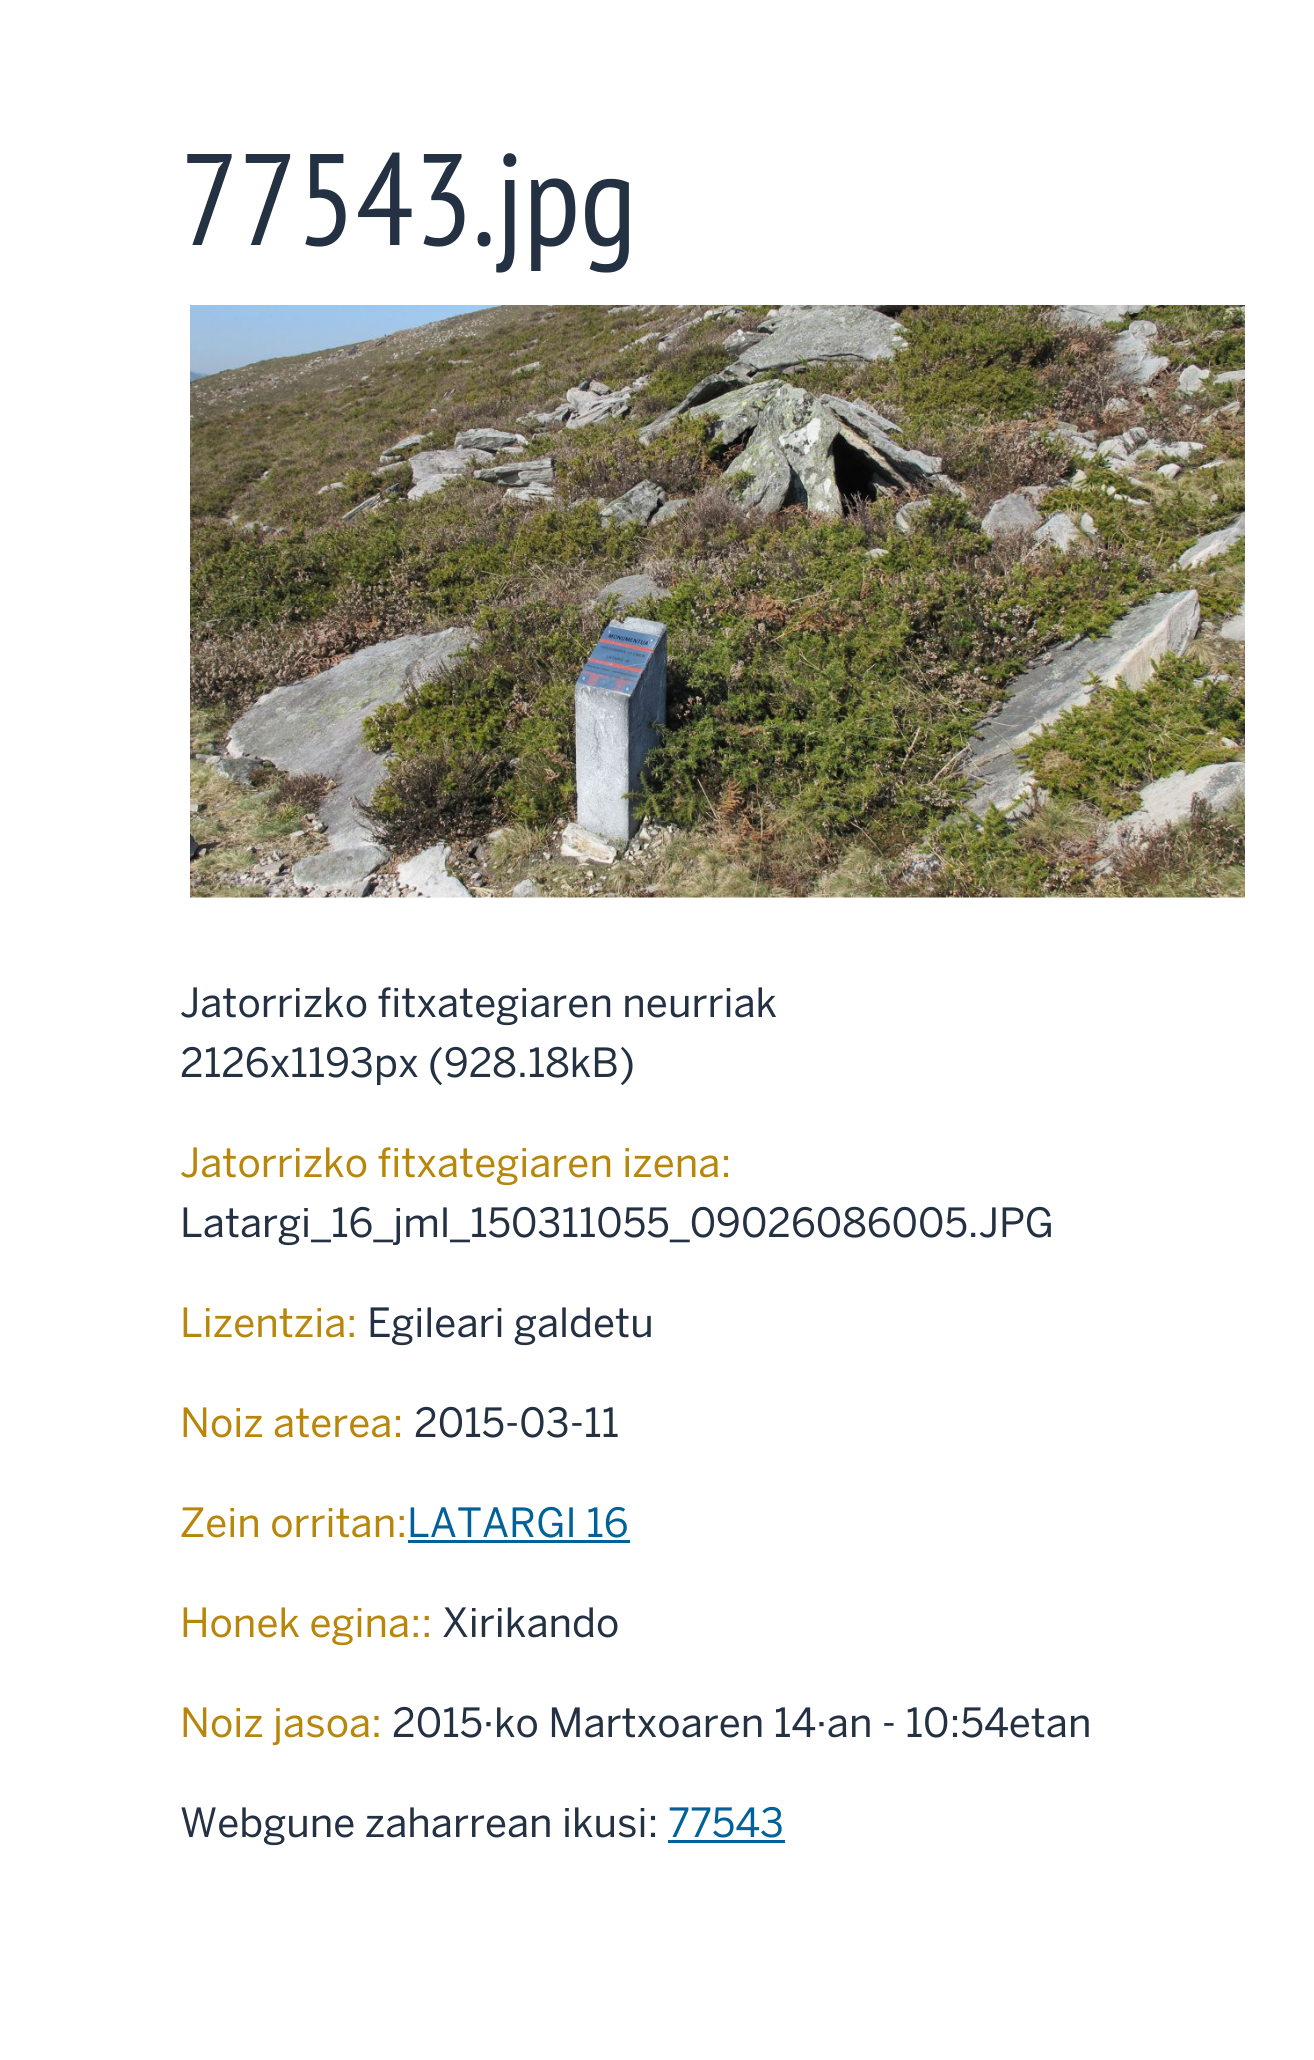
import math
import cairo

surface = cairo.ImageSurface(cairo.FORMAT_RGB24, 1314, 2060)
c = cairo.Context(surface)
options = cairo.FontOptions()
options.set_hint_metrics(cairo.HINT_METRICS_OFF)
options.set_hint_style(cairo.HINT_STYLE_NONE)
c.set_font_options(options)
c.set_miter_limit(4)
def C(code):
 c.set_source_rgb(*(v / 255 for v in bytes.fromhex(code[-6:])))
def F(family, size, italic, bold):
 c.select_font_face(family, cairo.FONT_SLANT_ITALIC if italic else cairo.FONT_SLANT_NORMAL, cairo.FONT_WEIGHT_BOLD if bold else cairo.FONT_WEIGHT_NORMAL)
 c.set_font_size(size)
def T(x, y, s):
 c.move_to(x, y)
 c.show_text(s)
def R(x, y, w, h):
 c.rectangle(x, y, w, h)
 c.fill()
def I(path, x, y, w, h):
 c.save()
 c.set_source_surface(cairo.ImageSurface.create_from_png(path), x, y)
 c.rectangle(x, y, w, h)
 c.fill()
 c.restore()
C('ffffff')
c.paint()
F('PT Sans Narrow',130,0,0)
C('243142')
T(180,245,'77543.jpg')
I('1.png',190,305,1055,593)
F('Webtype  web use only',40,0,0)
T(180,1017,'Jatorrizko fitxategiaren neurriak')
T(180,1077,'2126x1193px (928.18kB)')
C('b8860b')
T(180,1177,'Jatorrizko fitxategiaren izena:')
C('243142')
T(180,1237,'Latargi_16_jml_150311055_09026086005.JPG')
C('b8860b')
T(180,1337,'Lizentzia:')
C('243142')
T(367,1337,'Egileari galdetu')
C('b8860b')
T(180,1437,'Noiz aterea:')
C('243142')
T(414,1437,'2015-03-11')
C('b8860b')
T(180,1537,'Zein orritan:')
C('006298')
T(407,1537,'LATARGI 16')
R(408,1540,222,3)
C('b8860b')
T(180,1637,'Honek egina::')
C('243142')
T(442,1637,'Xirikando')
C('b8860b')
T(180,1737,'Noiz jasoa:')
C('243142')
T(392,1737,'2015·ko Martxoaren 14·an - 10:54etan')
T(180,1837,'Webgune zaharrean ikusi:')
C('006298')
T(668,1837,'77543')
R(668,1840,117,3)
surface.write_to_png('o.png')
